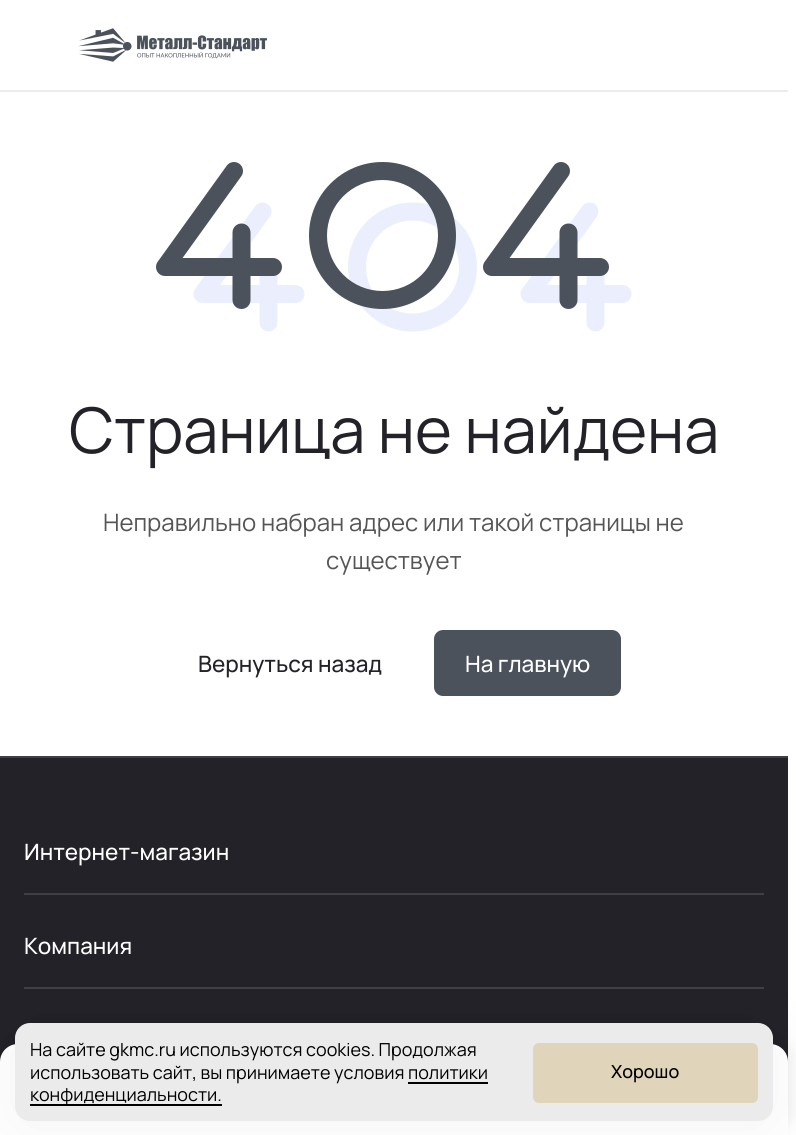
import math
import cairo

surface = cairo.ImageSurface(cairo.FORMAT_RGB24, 796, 1135)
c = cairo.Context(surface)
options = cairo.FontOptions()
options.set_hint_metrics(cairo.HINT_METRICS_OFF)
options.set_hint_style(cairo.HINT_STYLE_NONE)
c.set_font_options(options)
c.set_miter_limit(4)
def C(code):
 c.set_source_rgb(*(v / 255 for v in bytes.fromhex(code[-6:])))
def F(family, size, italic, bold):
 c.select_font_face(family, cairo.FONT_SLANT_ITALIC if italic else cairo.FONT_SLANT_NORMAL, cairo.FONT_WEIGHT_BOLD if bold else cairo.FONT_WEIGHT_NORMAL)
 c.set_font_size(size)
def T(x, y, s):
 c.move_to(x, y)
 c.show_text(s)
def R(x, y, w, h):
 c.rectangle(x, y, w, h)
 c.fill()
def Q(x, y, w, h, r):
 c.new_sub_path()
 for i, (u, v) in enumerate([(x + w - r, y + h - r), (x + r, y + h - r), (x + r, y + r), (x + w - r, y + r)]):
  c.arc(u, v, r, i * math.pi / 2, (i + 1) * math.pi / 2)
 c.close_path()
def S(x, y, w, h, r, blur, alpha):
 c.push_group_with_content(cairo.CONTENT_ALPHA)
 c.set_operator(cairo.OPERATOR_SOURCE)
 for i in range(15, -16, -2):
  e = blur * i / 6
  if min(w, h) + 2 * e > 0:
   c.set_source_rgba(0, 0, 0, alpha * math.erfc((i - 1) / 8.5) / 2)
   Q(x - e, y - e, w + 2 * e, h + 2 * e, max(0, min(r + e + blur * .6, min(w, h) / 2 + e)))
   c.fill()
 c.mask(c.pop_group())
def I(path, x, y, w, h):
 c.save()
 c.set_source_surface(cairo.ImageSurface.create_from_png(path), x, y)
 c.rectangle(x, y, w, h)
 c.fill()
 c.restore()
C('ffffff')
c.paint()
C('ebecef')
R(0,90,788,2)
I('1.png',78,28,189,34)
I('2.png',156,162,476,170)
F('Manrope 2 ExtraLight',63,0,0)
C('222228')
T(69,453,'Страница не найдена')
F('Manrope 2 ExtraLight',24,0,0)
C('555558')
T(103,531,'Неправильно набран адрес или такой страницы не')
T(326,569,'существует')
F('Manrope ExtraLight',22.5,0,0)
C('222228')
T(198,672,'Вернуться назад')
C('4b525c')
Q(435,631,185,64,8)
c.fill_preserve()
c.stroke()
C('ffffff')
T(465,672,'На главную')
C('222228')
R(0,758,788,304)
C('3f3f45')
R(0,756,788,2)
R(24,893,740,2)
C('ffffff')
T(24,860,'Интернет-магазин')
C('3f3f45')
R(24,987,740,2)
C('ffffff')
T(24,954,'Компания')
C('000000')
S(0,1040,788,91,18,7.5,.1)
C('ffffff')
c.new_path()
c.move_to(18,1044)
c.line_to(770,1044)
c.curve_to(780,1044,788,1052,788,1062)
c.line_to(788,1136)
c.line_to(0,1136)
c.line_to(0,1062)
c.curve_to(0,1052,8,1044,18,1044)
c.close_path()
c.fill()
C('000000')
S(15,1029,758,98,15,32.5,.05)
C('ebebeb')
Q(15,1023,758,98,15)
c.fill()
F('Manrope 2 ExtraLight',18,0,0)
C('000000')
T(30,1056,'На сайте gkmc.ru используются cookies. Продолжая')
T(30,1079,'использовать сайт, вы принимаете условия политики')
R(30,1104,192,2)
T(30,1101,'конфиденциальности.')
R(408,1082,80,2)
C('e0d5bb')
Q(533,1043,225,60,6)
c.fill()
F('Manrope ExtraLight',18,0,0)
C('000000')
T(611,1078,'Хорошо')
surface.write_to_png('o.png')
